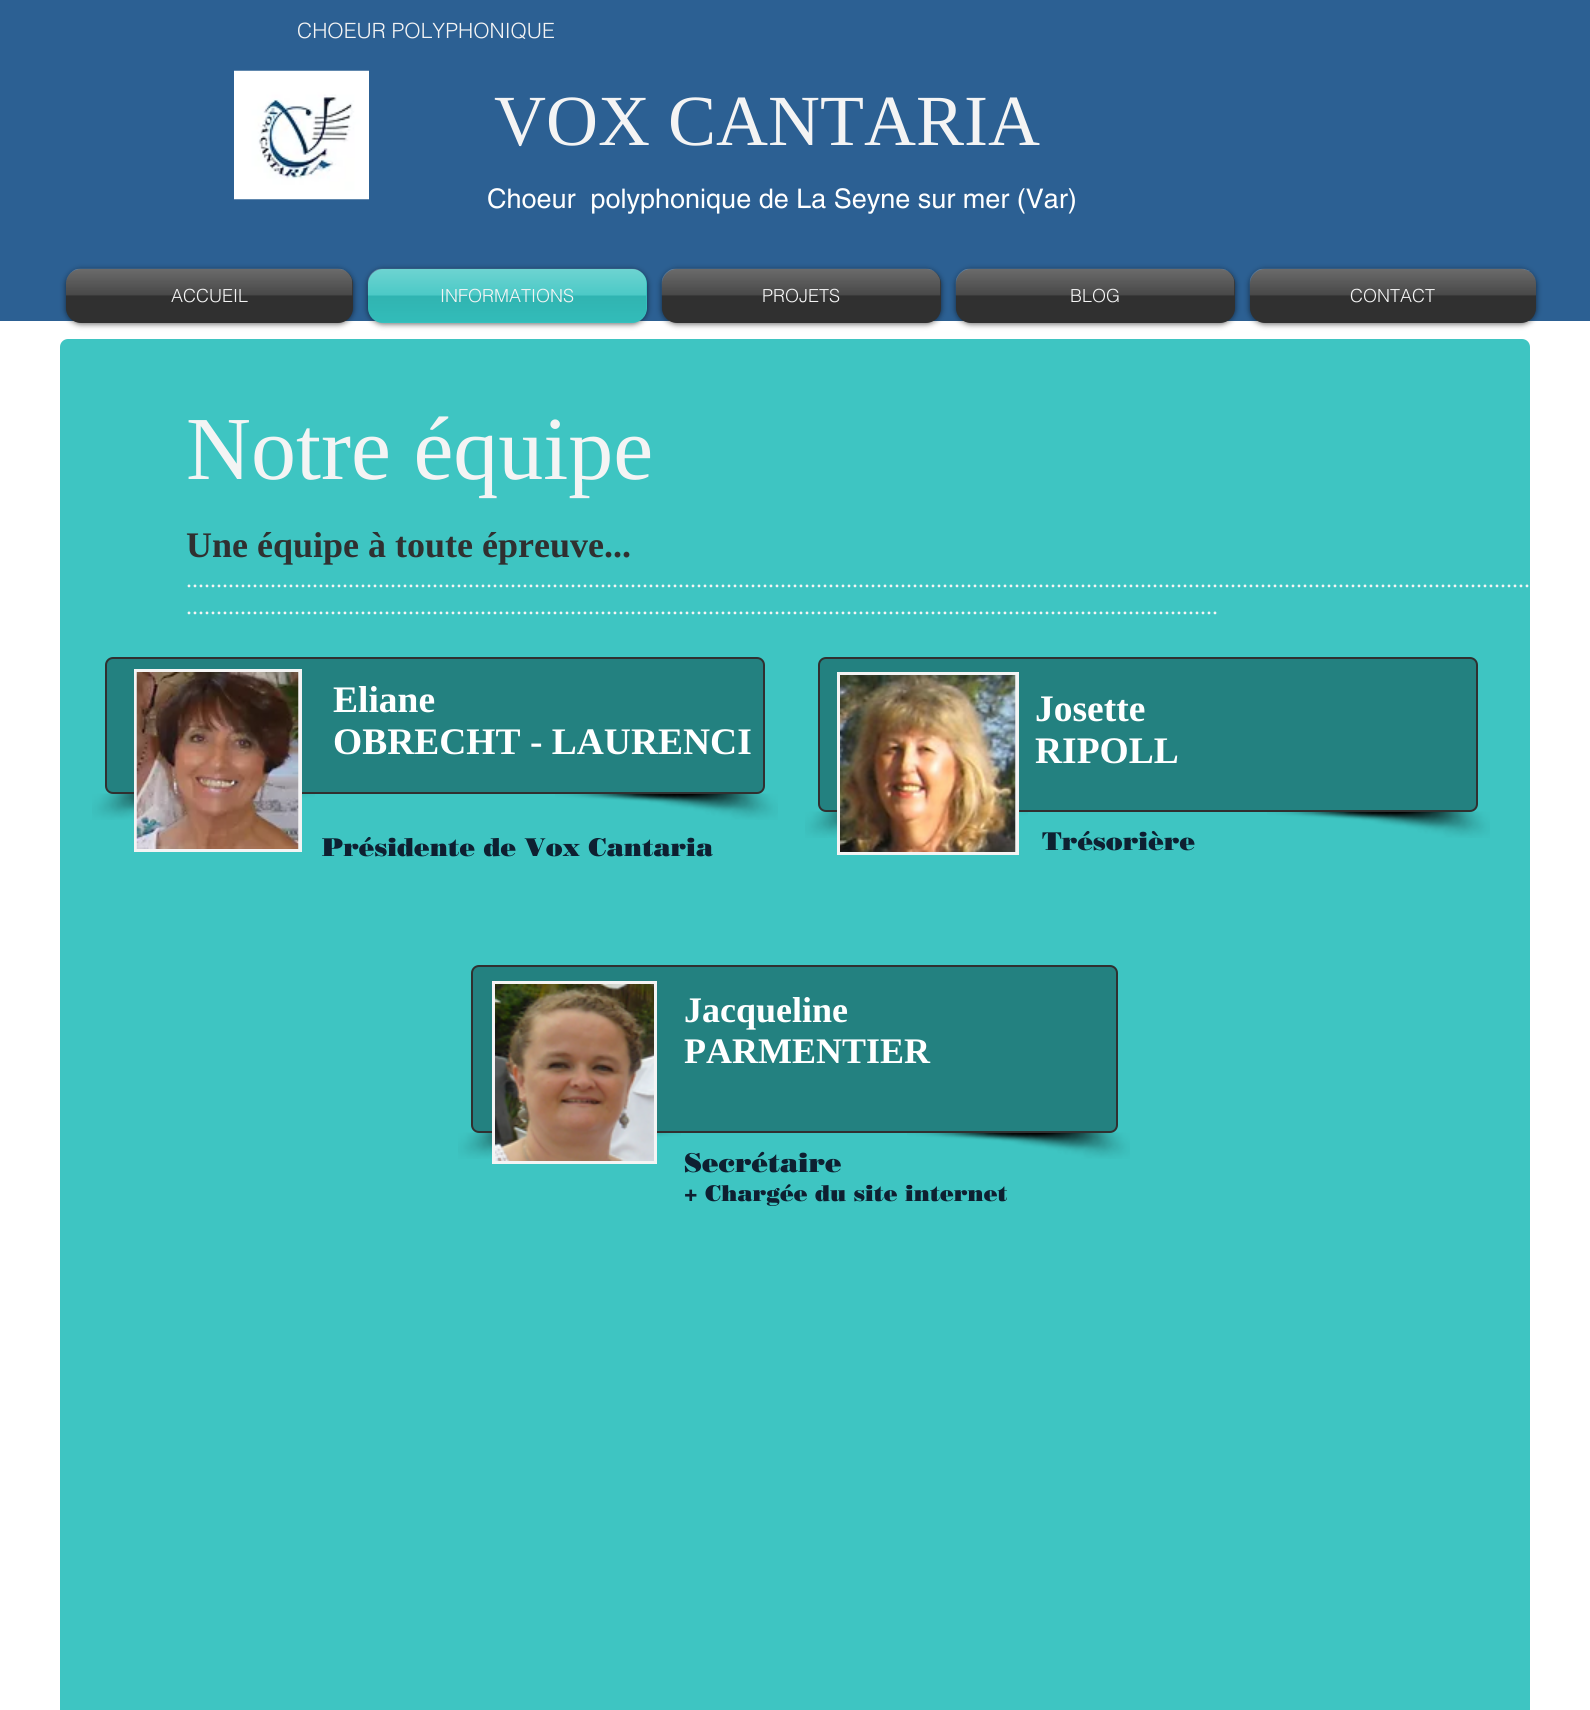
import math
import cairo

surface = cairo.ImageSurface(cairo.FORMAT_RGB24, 1590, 1710)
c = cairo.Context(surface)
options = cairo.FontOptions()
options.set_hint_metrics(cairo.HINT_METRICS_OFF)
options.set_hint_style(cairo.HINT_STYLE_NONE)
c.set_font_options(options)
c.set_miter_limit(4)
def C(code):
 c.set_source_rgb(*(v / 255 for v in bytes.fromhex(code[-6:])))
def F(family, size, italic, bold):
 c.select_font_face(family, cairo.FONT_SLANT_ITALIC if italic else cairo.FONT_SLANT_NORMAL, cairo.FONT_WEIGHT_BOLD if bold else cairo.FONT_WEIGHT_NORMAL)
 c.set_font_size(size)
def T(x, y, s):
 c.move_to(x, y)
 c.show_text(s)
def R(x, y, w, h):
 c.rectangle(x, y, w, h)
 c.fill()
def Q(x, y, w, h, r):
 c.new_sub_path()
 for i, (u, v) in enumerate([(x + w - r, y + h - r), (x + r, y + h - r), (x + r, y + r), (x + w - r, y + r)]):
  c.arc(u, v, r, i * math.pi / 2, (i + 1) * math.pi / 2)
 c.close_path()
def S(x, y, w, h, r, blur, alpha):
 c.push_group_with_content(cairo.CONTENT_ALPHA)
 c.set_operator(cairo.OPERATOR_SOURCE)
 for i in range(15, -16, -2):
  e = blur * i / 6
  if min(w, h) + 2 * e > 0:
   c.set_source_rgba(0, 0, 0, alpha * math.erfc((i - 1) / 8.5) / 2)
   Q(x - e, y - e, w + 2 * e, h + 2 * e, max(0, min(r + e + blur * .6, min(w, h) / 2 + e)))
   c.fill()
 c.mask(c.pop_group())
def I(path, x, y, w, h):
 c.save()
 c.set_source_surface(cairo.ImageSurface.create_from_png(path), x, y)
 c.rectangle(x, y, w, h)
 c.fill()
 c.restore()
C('ffffff')
c.paint()
C('2c6093')
R(0,0,1590,321)
F('helvetica Light',21,0,0)
C('f4f4f4')
T(297,38,'CHOEUR POLYPHONIQUE')
I('1.png',234,70,135,130)
F('Liberation Serif',72,0,0)
T(494,145,'VOX CANTARIA')
F('helvetica',27,0,0)
C('ffffff')
T(487,208,'Choeur  polyphonique de La Seyne sur mer (Var)')
C('000000')
S(66,270,287,54,15,3,.6)
C('303030')
Q(66,269,287,54,15)
c.fill()
I('2.png',66,268,287,28)
F('helvetica Light',18,0,0)
C('f4f4f4')
T(171,302,'ACCUEIL')
C('000000')
S(368,270,279,54,15,3,.6)
C('34c2bf')
Q(368,269,279,54,15)
c.fill()
I('3.png',367,268,280,54)
C('f4f4f4')
T(440,302,'INFORMATIONS')
C('000000')
S(662,270,279,54,15,3,.6)
C('303030')
Q(662,269,279,54,15)
c.fill()
I('4.png',661,268,280,28)
C('f4f4f4')
T(762,302,'PROJETS')
C('000000')
S(956,270,279,54,15,3,.6)
C('303030')
Q(956,269,279,54,15)
c.fill()
I('4.png',955,268,280,28)
C('f4f4f4')
T(1070,302,'BLOG')
C('000000')
S(1250,270,286,54,15,3,.6)
C('303030')
Q(1250,269,286,54,15)
c.fill()
I('5.png',1249,268,287,28)
C('f4f4f4')
T(1350,302,'CONTACT')
C('3ec5c2')
Q(60,339,1470,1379,8)
c.fill()
F('Liberation Serif',90,0,0)
C('f4f4f4')
T(186,479,'Notre équipe')
F('Liberation Serif',36,0,1)
C('303030')
T(186,557,'Une équipe à toute épreuve...')
F('Liberation Serif',24,0,0)
C('f4f4f4')
T(186,587,'................................................................................................................................................................................................................................')
T(186,614,'............................................................................................................................................................................')
I('7.png',92,793,223,27)
I('8.png',555,793,223,27)
C('238180')
Q(106,658,658,135,7)
c.fill_preserve()
C('303030')
c.stroke()
C('f4f4f4')
R(134,669,168,183)
I('6.png',136,672,163,177)
F('Liberation Serif',37.5,0,1)
C('ffffff')
T(333,712,'Eliane')
T(333,754,'OBRECHT - LAURENCI')
I('10.png',805,811,223,27)
I('11.png',1267,811,223,27)
C('238180')
Q(819,658,658,153,7)
c.fill_preserve()
C('303030')
c.stroke()
C('f4f4f4')
R(837,672,182,183)
I('9.png',840,675,176,177)
C('ffffff')
T(1035,721,'Josette')
T(1035,763,'RIPOLL')
F('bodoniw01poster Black',25.5,0,0)
C('0e2031')
T(322,856,'Présidente de Vox Cantaria')
T(1042,850,'Trésorière')
I('13.png',458,1132,223,27)
I('14.png',907,1132,223,27)
C('238180')
Q(472,966,645,166,7)
c.fill_preserve()
C('303030')
c.stroke()
C('f4f4f4')
R(492,981,165,183)
I('12.png',495,984,159,177)
F('Liberation Serif',36,0,1)
C('ffffff')
T(684,1022,'Jacqueline')
T(684,1063,'PARMENTIER')
F('bodoniw01poster Black',27,0,0)
C('0e2031')
T(684,1172,'Secrétaire')
F('bodoniw01poster Black',22.5,0,0)
T(684,1201,'+ Chargée du site internet')
surface.write_to_png('o.png')
